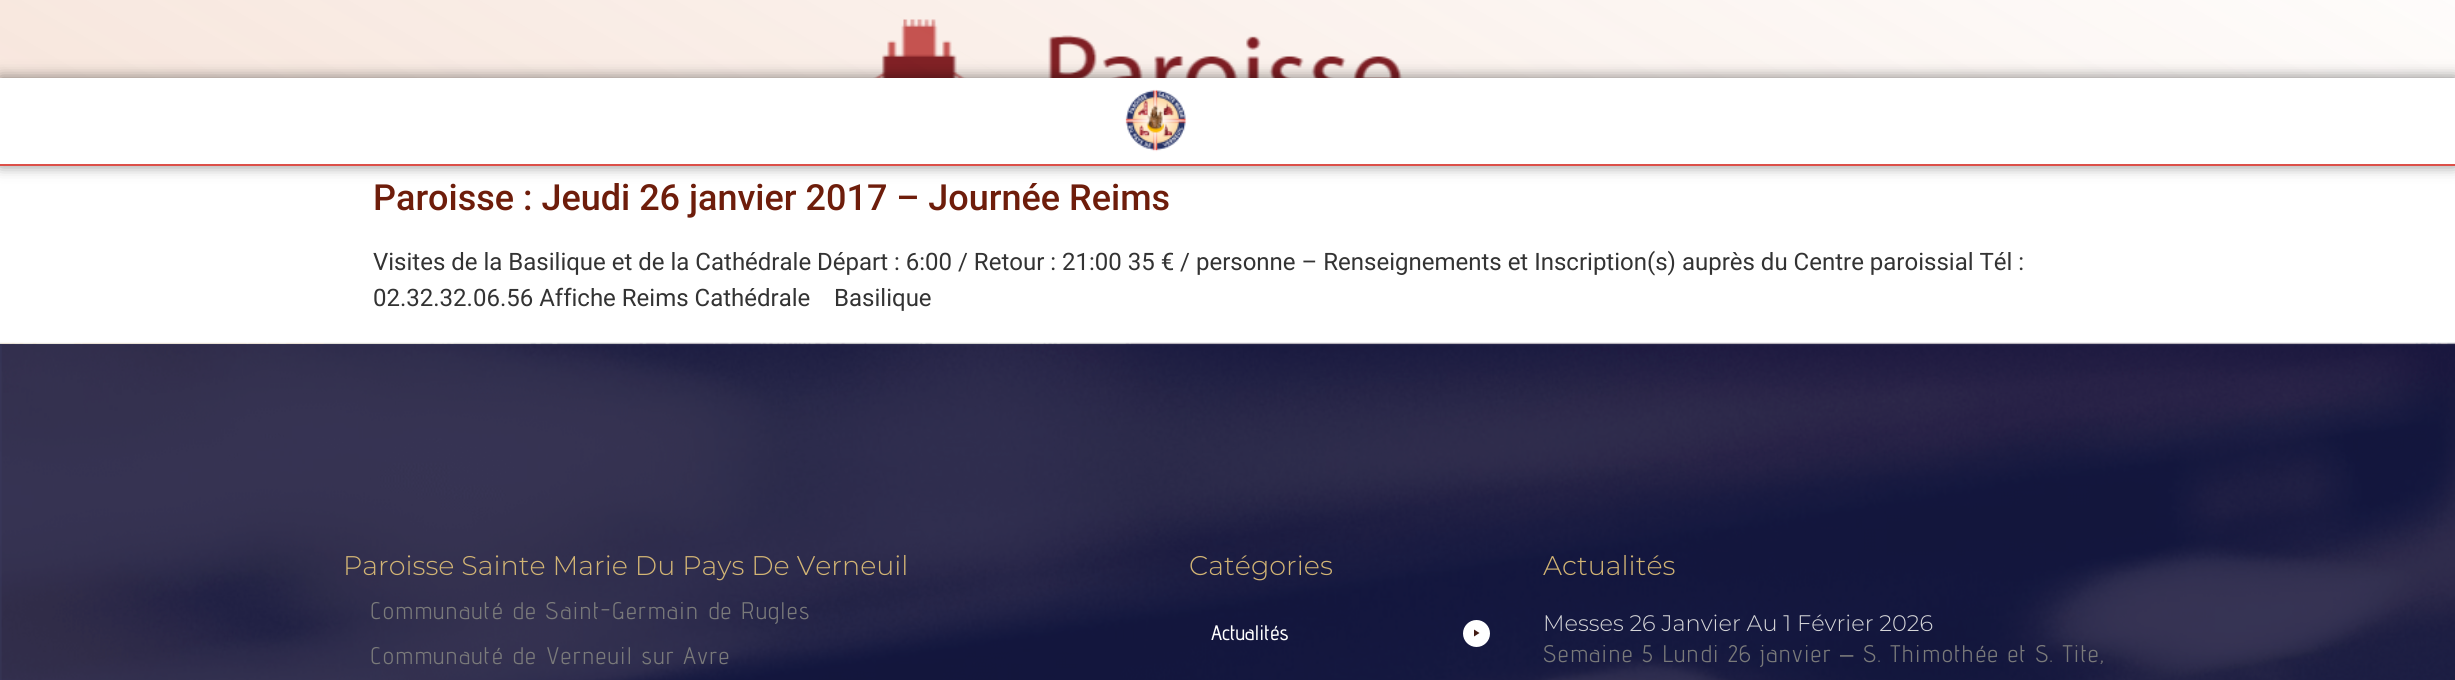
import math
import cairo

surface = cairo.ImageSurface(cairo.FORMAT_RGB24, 2455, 680)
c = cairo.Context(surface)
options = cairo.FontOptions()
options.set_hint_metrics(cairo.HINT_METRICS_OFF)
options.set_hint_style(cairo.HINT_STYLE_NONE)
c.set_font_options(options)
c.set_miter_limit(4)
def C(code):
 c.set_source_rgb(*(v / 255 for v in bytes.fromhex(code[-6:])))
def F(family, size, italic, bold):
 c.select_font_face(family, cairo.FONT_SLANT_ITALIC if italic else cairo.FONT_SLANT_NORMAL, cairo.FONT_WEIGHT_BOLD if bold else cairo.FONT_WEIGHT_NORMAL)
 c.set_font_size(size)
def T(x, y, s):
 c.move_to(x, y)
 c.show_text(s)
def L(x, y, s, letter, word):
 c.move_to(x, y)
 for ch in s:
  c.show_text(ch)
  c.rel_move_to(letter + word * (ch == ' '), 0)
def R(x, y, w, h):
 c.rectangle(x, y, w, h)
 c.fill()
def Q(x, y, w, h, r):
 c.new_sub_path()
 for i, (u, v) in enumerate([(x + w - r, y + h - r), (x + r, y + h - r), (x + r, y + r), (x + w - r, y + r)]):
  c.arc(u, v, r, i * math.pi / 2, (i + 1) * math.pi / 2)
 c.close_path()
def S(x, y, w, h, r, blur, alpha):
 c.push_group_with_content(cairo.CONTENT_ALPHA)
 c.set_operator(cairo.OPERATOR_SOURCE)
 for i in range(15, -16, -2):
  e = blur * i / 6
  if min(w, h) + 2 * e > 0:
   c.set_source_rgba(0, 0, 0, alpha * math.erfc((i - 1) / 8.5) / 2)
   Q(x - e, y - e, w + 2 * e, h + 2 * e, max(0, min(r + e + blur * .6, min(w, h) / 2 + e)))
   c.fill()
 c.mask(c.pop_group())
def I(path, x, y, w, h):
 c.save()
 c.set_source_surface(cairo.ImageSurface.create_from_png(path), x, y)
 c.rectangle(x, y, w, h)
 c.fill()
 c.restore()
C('ffffff')
c.paint()
C('39395c')
R(0,344,2455,336)
I('1.png',873,19,530,59)
gradient = cairo.LinearGradient(815,549,1640,-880)
gradient.add_color_stop_rgba(0,0.835,0.475,0.278,.18)
gradient.add_color_stop_rgba(.91,0.835,0.475,0.278,0)
c.set_source(gradient)
R(0,0,2455,78)
c.save()
c.set_fill_rule(cairo.FILL_RULE_EVEN_ODD)
c.new_path()
c.move_to(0,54)
c.line_to(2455,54)
c.line_to(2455,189)
c.line_to(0,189)
c.close_path()
c.move_to(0,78)
c.line_to(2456,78)
c.line_to(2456,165)
c.line_to(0,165)
c.close_path()
c.clip()
C('000000')
S(0,78,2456,87,0,7.5,.5)
c.restore()
C('dc5049')
R(0,164,2455,2)
I('2.png',1125,89,62,63)
F('Roboto Medium',36,0,0)
C('6e1d0b')
T(373,210,'Paroisse : Jeudi 26 janvier 2017 – Journée Reims')
F('Roboto',24,0,0)
C('333333')
T(373,270,'Visites de la Basilique et de la Cathédrale Départ : 6:00 / Retour : 21:00 35 € / personne – Renseignements et Inscription(s) auprès du Centre paroissial Tél :')
T(373,306,'02.32.32.06.56 Affiche Reims Cathédrale    Basilique')
I('3.png',0,342,2455,338)
F('Montserrat Light',27,0,0)
C('d3b574')
T(343,575,'Paroisse Sainte Marie Du Pays De Verneuil')
F('Advent Pro',24,0,0)
C('7a7a7a')
L(370,619,'Communauté de Saint-Germain de Rugles',1.5,0)
L(370,664,'Communauté de Verneuil sur Avre',1.5,0)
F('Montserrat Light',27,0,0)
C('d3b574')
T(1189,575,'Catégories')
F('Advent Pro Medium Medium',21,0,0)
C('ffffff')
T(1211,640,'Actualités')
c.new_path()
c.arc(1476.5,633.5,13.5,0,2 * math.pi)
c.fill()
C('421b12')
c.new_path()
c.move_to(1474,629.5)
c.line_to(1479.5,633)
c.line_to(1474,636.5)
c.close_path()
c.fill()
F('Montserrat Light',27,0,0)
C('d3b574')
T(1543,575,'Actualités')
F('Montserrat Light',22.5,0,0)
C('d7d7d9')
T(1543,631,'Messes 26 Janvier Au 1 Février 2026')
F('Advent Pro',24,0,0)
C('7a7a7a')
L(1543,662,'Semaine 5 Lundi 26 janvier',1.5,0)
F('Liberation Sans',24,0,0)
L(1840,662,'–',1.5,0)
F('Advent Pro',24,0,0)
L(1863,662,'S. Thimothée et S. Tite,',1.5,0)
surface.write_to_png('o.png')
